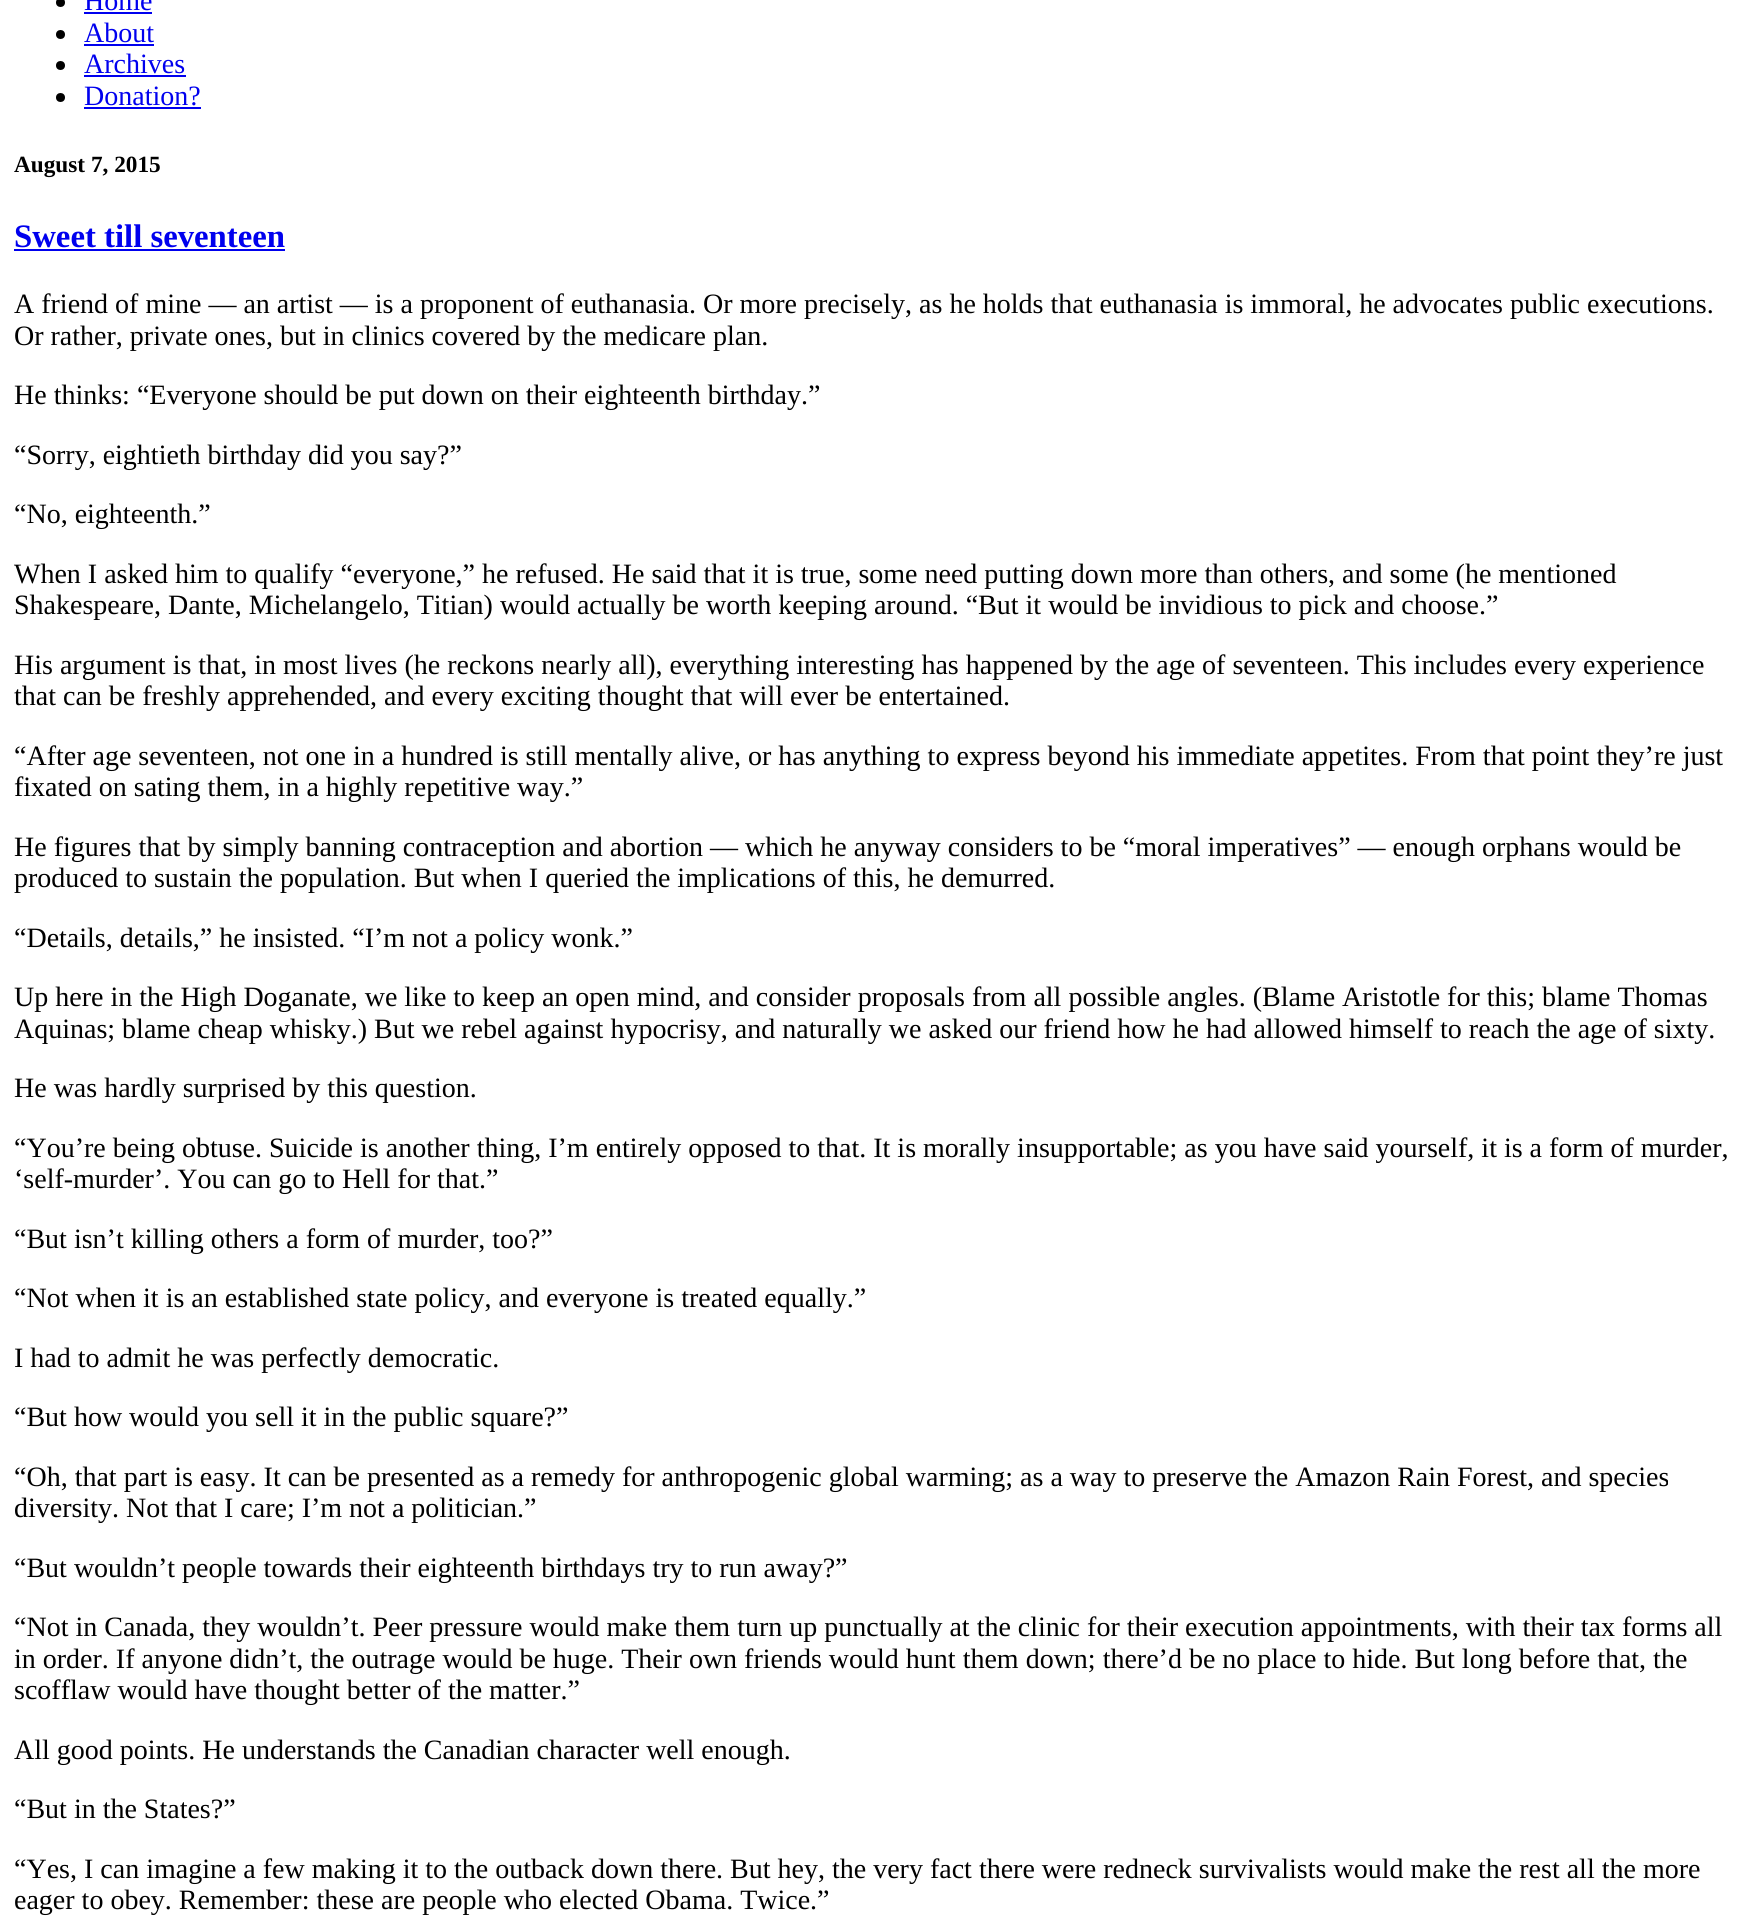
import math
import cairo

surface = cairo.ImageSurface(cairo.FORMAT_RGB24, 1747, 1931)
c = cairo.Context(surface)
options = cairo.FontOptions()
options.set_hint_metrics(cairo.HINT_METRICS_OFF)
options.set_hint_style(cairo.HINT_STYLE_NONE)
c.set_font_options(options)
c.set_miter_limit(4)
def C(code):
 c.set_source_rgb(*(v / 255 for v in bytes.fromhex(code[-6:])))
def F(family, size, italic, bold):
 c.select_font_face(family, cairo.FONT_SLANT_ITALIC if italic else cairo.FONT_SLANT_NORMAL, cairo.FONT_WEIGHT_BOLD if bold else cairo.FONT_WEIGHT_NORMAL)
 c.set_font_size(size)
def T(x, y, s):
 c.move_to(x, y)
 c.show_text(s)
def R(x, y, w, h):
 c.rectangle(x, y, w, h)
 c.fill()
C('ffffff')
c.paint()
C('000000')
c.arc(60.5,2.5,4.5,0,2 * math.pi)
c.fill()
F('Liberation Serif',28,0,0)
C('0000ee')
T(84,10,'Home')
R(84,12,68,2)
C('000000')
c.new_path()
c.arc(60.5,34.5,4.5,0,2 * math.pi)
c.fill()
C('0000ee')
T(84,42,'About')
R(84,44,70,2)
C('000000')
c.new_path()
c.arc(60.5,65.5,4.5,0,2 * math.pi)
c.fill()
C('0000ee')
T(84,73,'Archives')
R(84,75,102,2)
C('000000')
c.new_path()
c.arc(60.5,97.5,4.5,0,2 * math.pi)
c.fill()
C('0000ee')
T(84,105,'Donation?')
R(84,107,117,2)
F('Liberation Serif',23.25,0,1)
C('000000')
T(14,172,'August 7, 2015')
F('Liberation Serif',32.75,0,1)
C('0000ee')
T(14,247,'Sweet till seventeen')
R(14,249,271,2)
F('Liberation Serif',28,0,0)
C('000000')
T(14,313,'A friend of mine — an artist — is a proponent of euthanasia. Or more precisely, as he holds that euthanasia is immoral, he advocates public executions.')
T(14,345,'Or rather, private ones, but in clinics covered by the medicare plan.')
T(14,404,'He thinks: “Everyone should be put down on their eighteenth birthday.”')
T(14,464,'“Sorry, eightieth birthday did you say?”')
T(14,523,'“No, eighteenth.”')
T(14,583,'When I asked him to qualify “everyone,” he refused. He said that it is true, some need putting down more than others, and some (he mentioned')
T(14,614,'Shakespeare, Dante, Michelangelo, Titian) would actually be worth keeping around. “But it would be invidious to pick and choose.”')
T(14,674,'His argument is that, in most lives (he reckons nearly all), everything interesting has happened by the age of seventeen. This includes every experience')
T(14,705,'that can be freshly apprehended, and every exciting thought that will ever be entertained.')
T(14,765,'“After age seventeen, not one in a hundred is still mentally alive, or has anything to express beyond his immediate appetites. From that point they’re just')
T(14,796,'fixated on sating them, in a highly repetitive way.”')
T(14,856,'He figures that by simply banning contraception and abortion — which he anyway considers to be “moral imperatives” — enough orphans would be')
T(14,887,'produced to sustain the population. But when I queried the implications of this, he demurred.')
T(14,947,'“Details, details,” he insisted. “I’m not a policy wonk.”')
T(14,1006,'Up here in the High Doganate, we like to keep an open mind, and consider proposals from all possible angles. (Blame Aristotle for this; blame Thomas')
T(14,1038,'Aquinas; blame cheap whisky.) But we rebel against hypocrisy, and naturally we asked our friend how he had allowed himself to reach the age of sixty.')
T(14,1097,'He was hardly surprised by this question.')
T(14,1157,'“You’re being obtuse. Suicide is another thing, I’m entirely opposed to that. It is morally insupportable; as you have said yourself, it is a form of murder,')
T(14,1188,'‘self-murder’. You can go to Hell for that.”')
T(14,1248,'“But isn’t killing others a form of murder, too?”')
T(14,1307,'“Not when it is an established state policy, and everyone is treated equally.”')
T(14,1367,'I had to admit he was perfectly democratic.')
T(14,1426,'“But how would you sell it in the public square?”')
T(14,1486,'“Oh, that part is easy. It can be presented as a remedy for anthropogenic global warming; as a way to preserve the Amazon Rain Forest, and species')
T(14,1517,'diversity. Not that I care; I’m not a politician.”')
T(14,1577,'“But wouldn’t people towards their eighteenth birthdays try to run away?”')
T(14,1636,'“Not in Canada, they wouldn’t. Peer pressure would make them turn up punctually at the clinic for their execution appointments, with their tax forms all')
T(14,1668,'in order. If anyone didn’t, the outrage would be huge. Their own friends would hunt them down; there’d be no place to hide. But long before that, the')
T(14,1699,'scofflaw would have thought better of the matter.”')
T(14,1759,'All good points. He understands the Canadian character well enough.')
T(14,1818,'“But in the States?”')
T(14,1878,'“Yes, I can imagine a few making it to the outback down there. But hey, the very fact there were redneck survivalists would make the rest all the more')
T(14,1909,'eager to obey. Remember: these are people who elected Obama. Twice.”')
surface.write_to_png('o.png')
